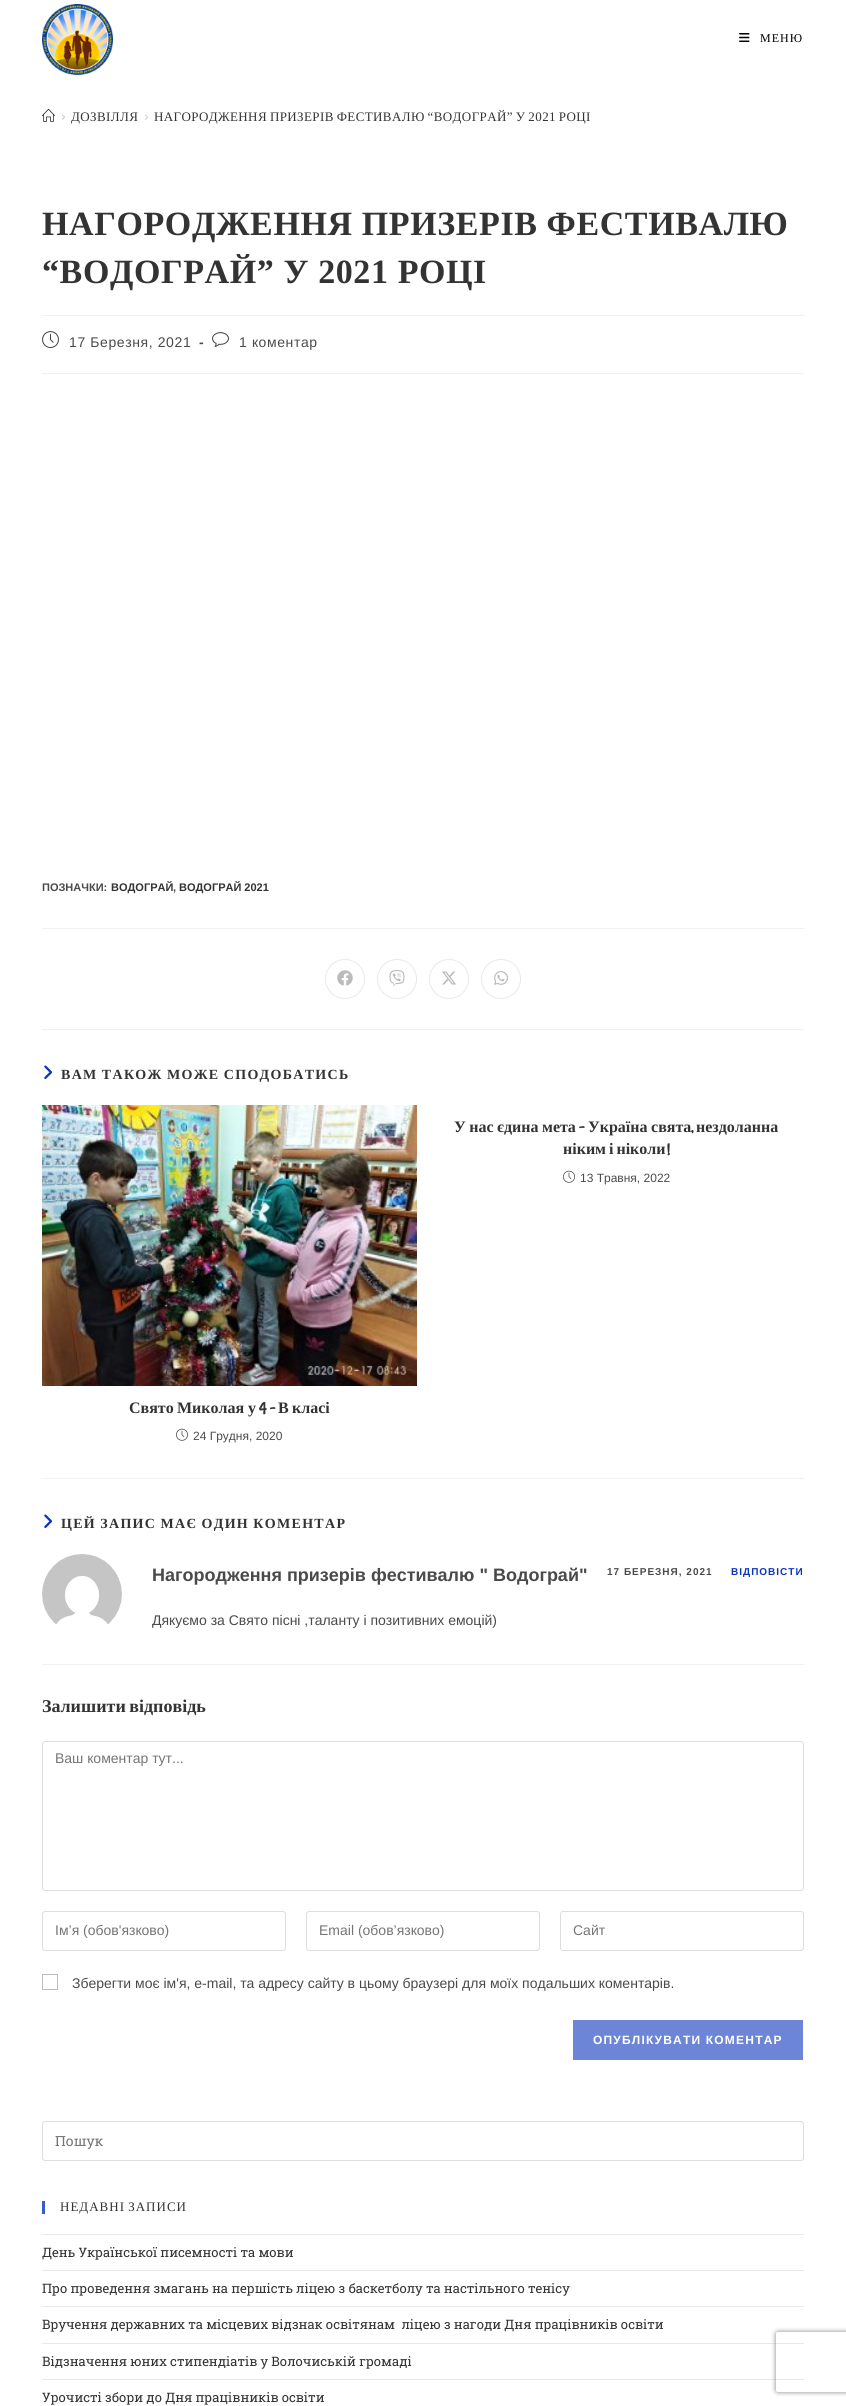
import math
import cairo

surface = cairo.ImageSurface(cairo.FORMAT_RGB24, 846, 2406)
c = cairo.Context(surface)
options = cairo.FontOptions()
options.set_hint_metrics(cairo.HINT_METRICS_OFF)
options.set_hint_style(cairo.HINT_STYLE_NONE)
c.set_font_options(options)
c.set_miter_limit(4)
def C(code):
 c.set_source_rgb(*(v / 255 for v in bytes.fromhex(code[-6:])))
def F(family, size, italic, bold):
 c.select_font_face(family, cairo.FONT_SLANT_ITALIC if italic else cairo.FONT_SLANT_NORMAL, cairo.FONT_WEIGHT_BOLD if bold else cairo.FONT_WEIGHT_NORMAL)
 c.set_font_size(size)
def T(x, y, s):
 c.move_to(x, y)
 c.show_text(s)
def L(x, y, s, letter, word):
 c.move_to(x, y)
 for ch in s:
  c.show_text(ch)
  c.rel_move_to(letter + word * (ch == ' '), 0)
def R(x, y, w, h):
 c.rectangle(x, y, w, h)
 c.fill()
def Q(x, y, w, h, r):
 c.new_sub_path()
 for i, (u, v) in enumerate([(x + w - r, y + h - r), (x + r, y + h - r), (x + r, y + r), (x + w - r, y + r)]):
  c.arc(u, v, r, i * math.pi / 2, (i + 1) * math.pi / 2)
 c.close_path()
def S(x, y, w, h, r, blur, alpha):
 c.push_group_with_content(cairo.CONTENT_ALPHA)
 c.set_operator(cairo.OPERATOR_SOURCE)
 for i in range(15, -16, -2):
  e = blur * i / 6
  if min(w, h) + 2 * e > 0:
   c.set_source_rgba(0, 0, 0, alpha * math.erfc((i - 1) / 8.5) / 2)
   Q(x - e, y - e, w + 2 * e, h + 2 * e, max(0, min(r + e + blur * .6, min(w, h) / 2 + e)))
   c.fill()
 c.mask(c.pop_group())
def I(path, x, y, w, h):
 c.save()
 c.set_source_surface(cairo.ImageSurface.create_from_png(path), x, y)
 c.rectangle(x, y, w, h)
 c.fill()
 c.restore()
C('ffffff')
c.paint()
I('1.png',42,4,71,71)
I('2.png',739,33,11,9)
F('Liberation Serif',12,0,0)
C('000000')
L(760,42,'МЕНЮ',1,0)
I('3.png',42,108,13,14)
F('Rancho',13,0,0)
C('c6c6c6')
L(62,121,'>',.4,0)
F('Liberation Serif',13,0,0)
C('333333')
L(71,121,'ДОЗВІЛЛЯ',.4,0)
F('Rancho',13,0,0)
C('c6c6c6')
L(145,121,'>',.4,0)
F('Liberation Serif',13,0,0)
C('333333')
L(154,121,'НАГОРОДЖЕННЯ ПРИЗЕРІВ ФЕСТИВАЛЮ “ВОДОГРАЙ” У 2021 РОЦІ',.4,-.75)
C('f1f1f1')
R(42,315,762,1)
F('Liberation Serif',34,0,1)
C('333333')
L(42,235,'НАГОРОДЖЕННЯ ПРИЗЕРІВ ФЕСТИВАЛЮ',.6,0)
L(42,283,'“ВОДОГРАЙ” У 2021 РОЦІ',.6,0)
C('f1f1f1')
R(42,373,762,1)
I('4.png',42,331,17,18)
F('Liberation Sans',14,0,0)
C('4a4a4a')
L(69,347,'17 Березня, 2021',.6,0)
F('Liberation Sans',14,0,1)
L(199,347,'-',.6,0)
I('5.png',212,332,17,15)
F('Liberation Sans',14,0,0)
L(239,347,'1 коментар',.6,0)
F('Liberation Sans',11,0,1)
T(42,891,'ПОЗНАЧКИ:')
C('333333')
T(111,891,'ВОДОГРАЙ')
C('4a4a4a')
T(173,891,',')
C('333333')
T(179,891,'ВОДОГРАЙ 2021')
C('f1f1f1')
R(42,928,762,1)
c.new_path()
c.arc(345,979,19.5,0,2 * math.pi)
C('e9e9e9')
c.set_line_width(1)
c.stroke()
I('6.png',337,970,16,16)
c.arc(397,979,19.5,0,2 * math.pi)
c.stroke()
I('7.png',389,970,16,16)
c.arc(449,979,19.5,0,2 * math.pi)
c.stroke()
I('8.png',442,971,14,14)
c.arc(501,979,19.5,0,2 * math.pi)
c.stroke()
I('9.png',494,971,14,14)
C('f1f1f1')
R(42,1029,762,1)
I('10.png',44,1065,9,14)
F('Liberation Serif',14,0,1)
C('333333')
L(61,1079,'ВАМ ТАКОЖ МОЖЕ СПОДОБАТИСЬ',1.3,-.5)
F('Liberation Serif',16,0,1)
L(454,1132,'У нас єдина мета',0,-.5)
F('Rancho',16,0,1)
T(579,1132,'–')
F('Liberation Serif',16,0,1)
L(588,1132,'Україна свята',0,-.5)
T(696,1132,'нездоланна')
F('Rancho',16,0,1)
T(691,1132,',')
F('Liberation Serif',16,0,1)
L(563,1154,'ніким і ніколи',0,-1)
F('Rancho',16,0,1)
T(667,1154,'!')
I('11.png',563,1170,12,13)
F('Liberation Sans',12,0,0)
C('4a4a4a')
T(580,1182,'13 Травня, 2022')
I('12.png',42,1105,375,281)
F('Liberation Serif',16,0,1)
C('333333')
T(129,1413,'Свято')
T(177,1413,'Миколая')
T(248,1413,'у')
F('Rancho',16,0,1)
T(259,1413,'4 –')
F('Liberation Serif',16,0,1)
T(278,1413,'В')
T(292,1413,'класі')
I('11.png',176,1428,12,13)
F('Liberation Sans',12,0,0)
C('4a4a4a')
T(193,1440,'24 Грудня, 2020')
C('f1f1f1')
R(42,1478,762,1)
I('10.png',44,1514,9,14)
F('Liberation Serif',14,0,1)
C('333333')
L(61,1528,'ЦЕЙ ЗАПИС МАЄ ОДИН КОМЕНТАР',1.3,-.5)
C('f1f1f1')
R(42,1664,762,1)
I('13.png',42,1554,80,71)
F('Liberation Sans',18,0,1)
C('4a4a4a')
T(152,1581,'Нагородження призерів фестивалю " Водограй"')
F('Liberation Sans',10,0,1)
L(607,1575,'17 БЕРЕЗНЯ, 2021',1,0)
C('0b34bc')
L(731,1575,'ВІДПОВІCТИ',1,0)
F('Liberation Sans',14,0,0)
C('4a4a4a')
T(152,1625,'Дякуємо за Свято пісні ,таланту і позитивних емоцій)')
F('Liberation Serif',18,0,1)
C('333333')
L(42,1712,'Залишити відповідь',0,-1)
Q(42.5,1741.5,761,149,2.5)
C('dddddd')
c.stroke()
F('Liberation Sans',14,0,0)
C('757575')
T(55,1763,'Ваш коментар тут...')
Q(42.5,1911.5,243,39,2.5)
C('dddddd')
c.stroke()
C('757575')
T(55,1935,'Ім’я (обов\'язково)')
Q(306.5,1911.5,233,39,2.5)
C('dddddd')
c.stroke()
C('757575')
T(319,1935,'Email (обов’язково)')
Q(560.5,1911.5,243,39,2.5)
C('dddddd')
c.stroke()
C('757575')
T(573,1935,'Сайт')
c.rectangle(42.5,1974.5,15,15)
C('bbbbbb')
c.stroke()
C('4a4a4a')
T(72,1988,'Зберегти моє ім\'я, e-mail, та адресу сайту в цьому браузері для моїх подальших коментарів.')
C('6d85d7')
R(573,2020,230,40)
F('Liberation Sans',12,0,1)
C('ffffff')
L(593,2044,'ОПУБЛІКУВАТИ КОМЕНТАР',1.2,0)
Q(42.5,2121.5,761,39,2.5)
C('dddddd')
c.stroke()
F('Roboto Slab',14,0,0)
C('757575')
T(55,2146,'Пошук')
C('3c5dc9')
R(42,2201,3,13)
F('Liberation Serif',13,0,0)
C('333333')
L(60,2211,'НЕДАВНІ ЗАПИСИ',1,-1)
C('e9e9e9')
R(42,2234,762,1)
R(42,2270,762,1)
F('Roboto Slab',13,0,0)
C('333333')
T(42,2257,'День Української писемності та мови')
C('e9e9e9')
R(42,2306,762,1)
C('333333')
T(42,2293,'Про проведення змагань на першість ліцею з баскетболу та настільного тенісу')
C('e9e9e9')
R(42,2343,762,1)
C('333333')
T(42,2329,'Вручення державних та місцевих відзнак освітянам  ліцею з нагоди Дня працівників освіти')
C('e9e9e9')
R(42,2379,762,1)
C('333333')
T(42,2366,'Відзначення юних стипендіатів у Волочиській громаді')
T(42,2402,'Урочисті збори до Дня працівників освіти')
c.save()
c.set_fill_rule(cairo.FILL_RULE_EVEN_ODD)
c.new_path()
c.move_to(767,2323)
c.line_to(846,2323)
c.line_to(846,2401)
c.line_to(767,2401)
c.close_path()
c.move_to(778,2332)
c.line_to(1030,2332)
c.curve_to(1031,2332,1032,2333,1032,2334)
c.line_to(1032,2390)
c.curve_to(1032,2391,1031,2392,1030,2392)
c.line_to(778,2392)
c.curve_to(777,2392,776,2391,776,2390)
c.line_to(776,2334)
c.curve_to(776,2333,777,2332,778,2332)
c.close_path()
c.clip()
C('808080')
S(776,2332,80,60,2,2.5,1)
c.restore()
surface.write_to_png('o.png')
